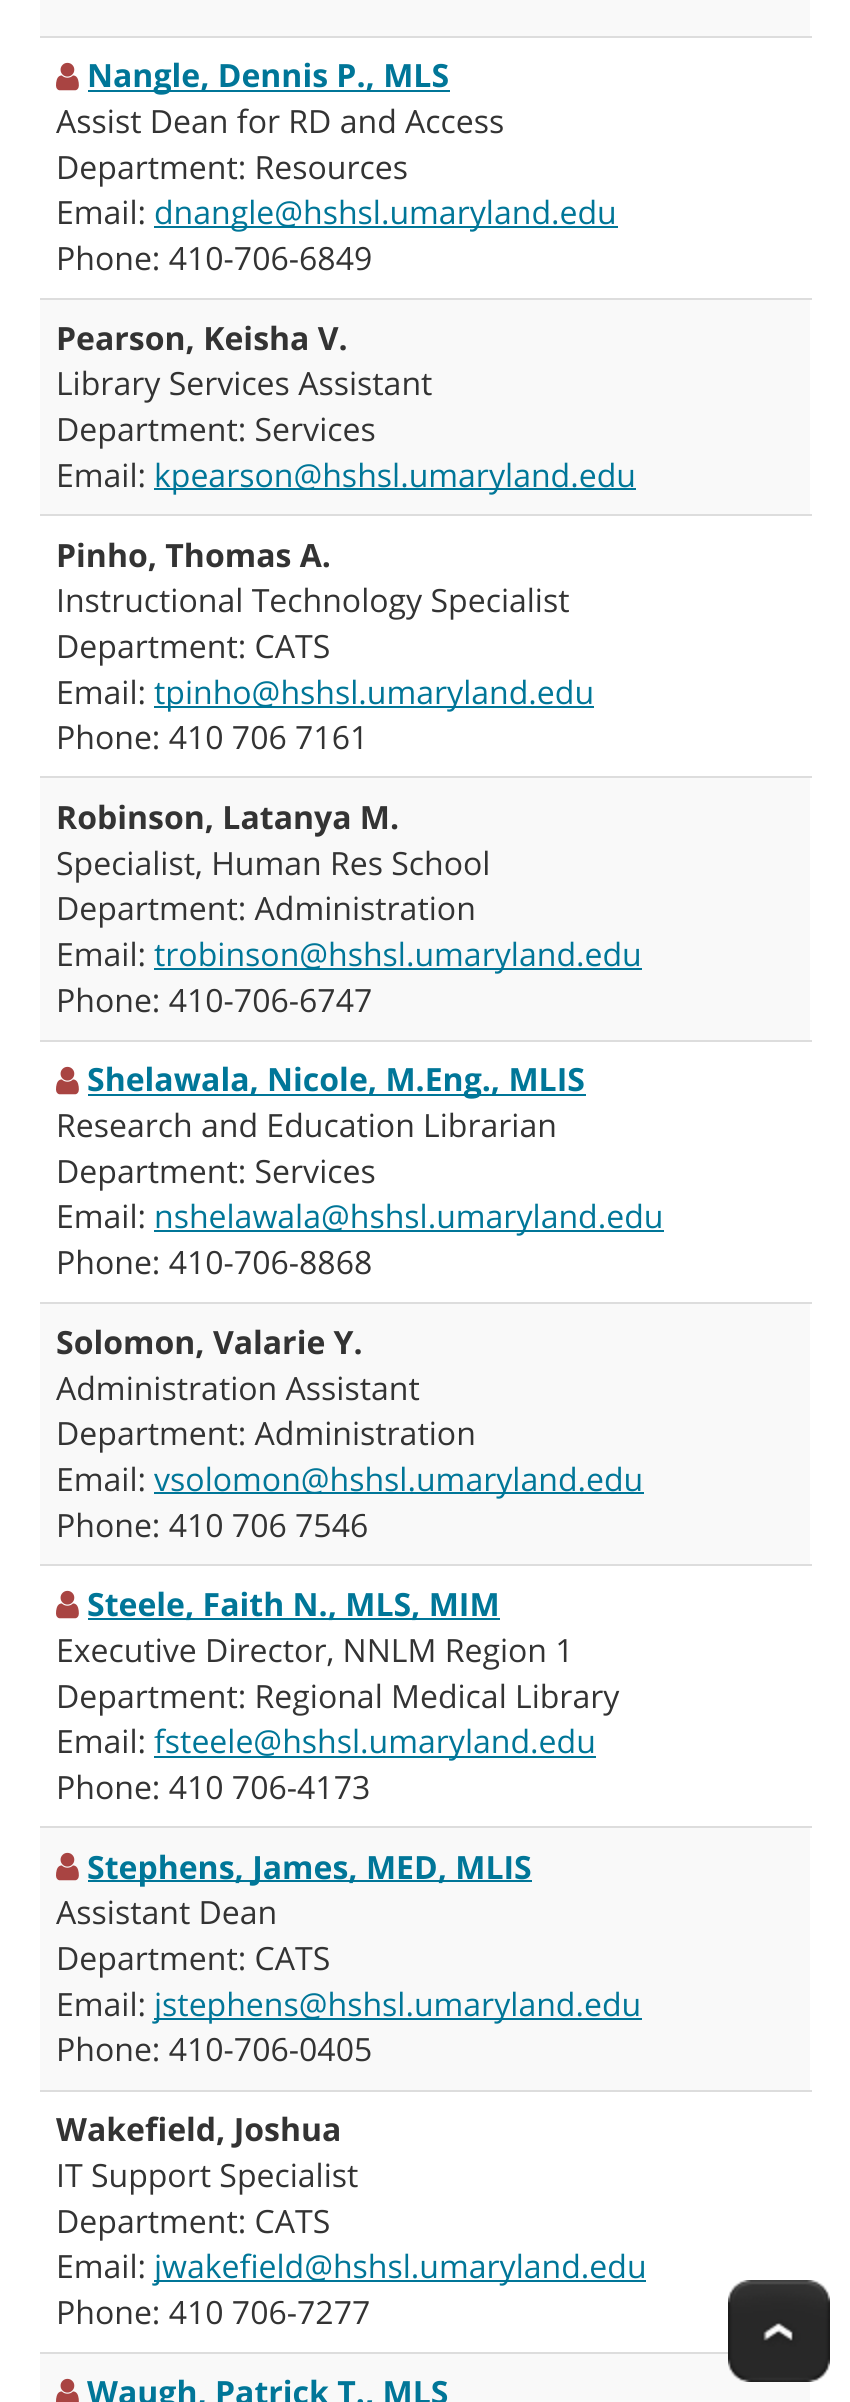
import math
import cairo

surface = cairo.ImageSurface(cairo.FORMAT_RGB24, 850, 2402)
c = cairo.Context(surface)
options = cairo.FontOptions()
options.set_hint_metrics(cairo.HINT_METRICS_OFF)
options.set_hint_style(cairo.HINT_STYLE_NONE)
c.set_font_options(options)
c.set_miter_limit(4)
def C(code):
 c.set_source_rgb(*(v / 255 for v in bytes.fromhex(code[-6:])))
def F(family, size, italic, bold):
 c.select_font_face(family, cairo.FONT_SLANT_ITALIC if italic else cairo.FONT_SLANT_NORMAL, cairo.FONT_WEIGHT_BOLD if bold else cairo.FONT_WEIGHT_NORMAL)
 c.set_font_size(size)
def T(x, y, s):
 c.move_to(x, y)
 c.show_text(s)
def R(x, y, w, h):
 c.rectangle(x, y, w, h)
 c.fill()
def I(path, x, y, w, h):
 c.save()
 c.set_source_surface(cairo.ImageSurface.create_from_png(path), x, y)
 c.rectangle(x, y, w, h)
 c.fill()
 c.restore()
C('ffffff')
c.paint()
C('f9f9f9')
R(40,0,770,36)
C('dddddd')
R(40,36,772,2)
I('1.png',56,62,23,29)
C('007698')
R(88,90,362,2)
F('Open Sans',32,0,1)
T(87,87,'Nangle, Dennis P., MLS')
F('Open Sans',32,0,0)
C('333333')
T(56,133,'Assist Dean for RD and Access')
T(56,179,'Department: Resources')
T(56,224,'Email:')
C('007698')
R(154,226,464,2)
T(154,224,'dnangle@hshsl.umaryland.edu')
C('333333')
T(56,270,'Phone: 410-706-6849')
C('f9f9f9')
R(40,300,770,214)
C('dddddd')
R(40,298,772,2)
F('Open Sans',32,0,1)
C('333333')
T(56,350,'Pearson, Keisha V.')
F('Open Sans',32,0,0)
T(56,395,'Library Services Assistant')
T(56,441,'Department: Services')
T(56,487,'Email:')
C('007698')
R(154,488,482,2)
T(154,487,'kpearson@hshsl.umaryland.edu')
C('dddddd')
R(40,514,772,2)
F('Open Sans',32,0,1)
C('333333')
T(56,567,'Pinho, Thomas A.')
F('Open Sans',32,0,0)
T(56,612,'Instructional Technology Specialist')
T(56,658,'Department: CATS')
T(56,704,'Email:')
C('007698')
R(154,706,440,2)
T(154,704,'tpinho@hshsl.umaryland.edu')
C('333333')
T(56,749,'Phone: 410 706 7161')
C('f9f9f9')
R(40,778,770,262)
C('dddddd')
R(40,776,772,2)
F('Open Sans',32,0,1)
C('333333')
T(56,829,'Robinson, Latanya M.')
F('Open Sans',32,0,0)
T(56,875,'Specialist, Human Res School')
T(56,920,'Department: Administration')
T(56,966,'Email:')
C('007698')
R(154,968,488,2)
T(154,966,'trobinson@hshsl.umaryland.edu')
C('333333')
T(56,1012,'Phone: 410-706-6747')
C('dddddd')
R(40,1040,772,2)
I('1.png',56,1066,23,29)
C('007698')
R(88,1094,498,2)
F('Open Sans',32,0,1)
T(87,1091,'Shelawala, Nicole, M.Eng., MLIS')
F('Open Sans',32,0,0)
C('333333')
T(56,1137,'Research and Education Librarian')
T(56,1183,'Department: Services')
T(56,1228,'Email:')
C('007698')
R(154,1230,510,2)
T(154,1228,'nshelawala@hshsl.umaryland.edu')
C('333333')
T(56,1274,'Phone: 410-706-8868')
C('f9f9f9')
R(40,1304,770,260)
C('dddddd')
R(40,1302,772,2)
F('Open Sans',32,0,1)
C('333333')
T(56,1354,'Solomon, Valarie Y.')
F('Open Sans',32,0,0)
T(56,1400,'Administration Assistant')
T(56,1445,'Department: Administration')
T(56,1491,'Email:')
C('007698')
R(154,1492,490,2)
T(154,1491,'vsolomon@hshsl.umaryland.edu')
C('333333')
T(56,1537,'Phone: 410 706 7546')
C('dddddd')
R(40,1564,772,2)
I('1.png',56,1590,23,29)
C('007698')
R(88,1618,412,2)
F('Open Sans',32,0,1)
T(87,1616,'Steele, Faith N., MLS, MIM')
F('Open Sans',32,0,0)
C('333333')
T(56,1662,'Executive Director, NNLM Region 1')
T(56,1708,'Department: Regional Medical Library')
T(56,1753,'Email:')
C('007698')
R(154,1756,442,2)
T(154,1753,'fsteele@hshsl.umaryland.edu')
C('333333')
T(56,1799,'Phone: 410 706-4173')
C('f9f9f9')
R(40,1828,770,262)
C('dddddd')
R(40,1826,772,2)
I('2.png',56,1852,23,29)
C('007698')
R(88,1880,444,2)
F('Open Sans',32,0,1)
T(87,1879,'Stephens, James, MED, MLIS')
F('Open Sans',32,0,0)
C('333333')
T(56,1924,'Assistant Dean')
T(56,1970,'Department: CATS')
T(56,2016,'Email:')
C('007698')
R(154,2018,488,2)
T(154,2016,'jstephens@hshsl.umaryland.edu')
C('333333')
T(56,2061,'Phone: 410-706-0405')
C('dddddd')
R(40,2090,772,2)
F('Open Sans',32,0,1)
C('333333')
T(56,2141,'Wakefield, Joshua')
F('Open Sans',32,0,0)
T(56,2187,'IT Support Specialist')
T(56,2233,'Department: CATS')
T(56,2278,'Email:')
C('007698')
R(154,2280,492,2)
T(154,2278,'jwakefield@hshsl.umaryland.edu')
C('333333')
T(56,2324,'Phone: 410 706-7277')
C('f9f9f9')
R(40,2354,770,48)
C('dddddd')
R(40,2352,772,2)
I('3.png',56,2378,23,24)
F('Open Sans',32,0,1)
C('007698')
T(87,2404,'Waugh, Patrick T., MLS')
I('4.png',728,2280,102,102)
surface.write_to_png('o.png')
